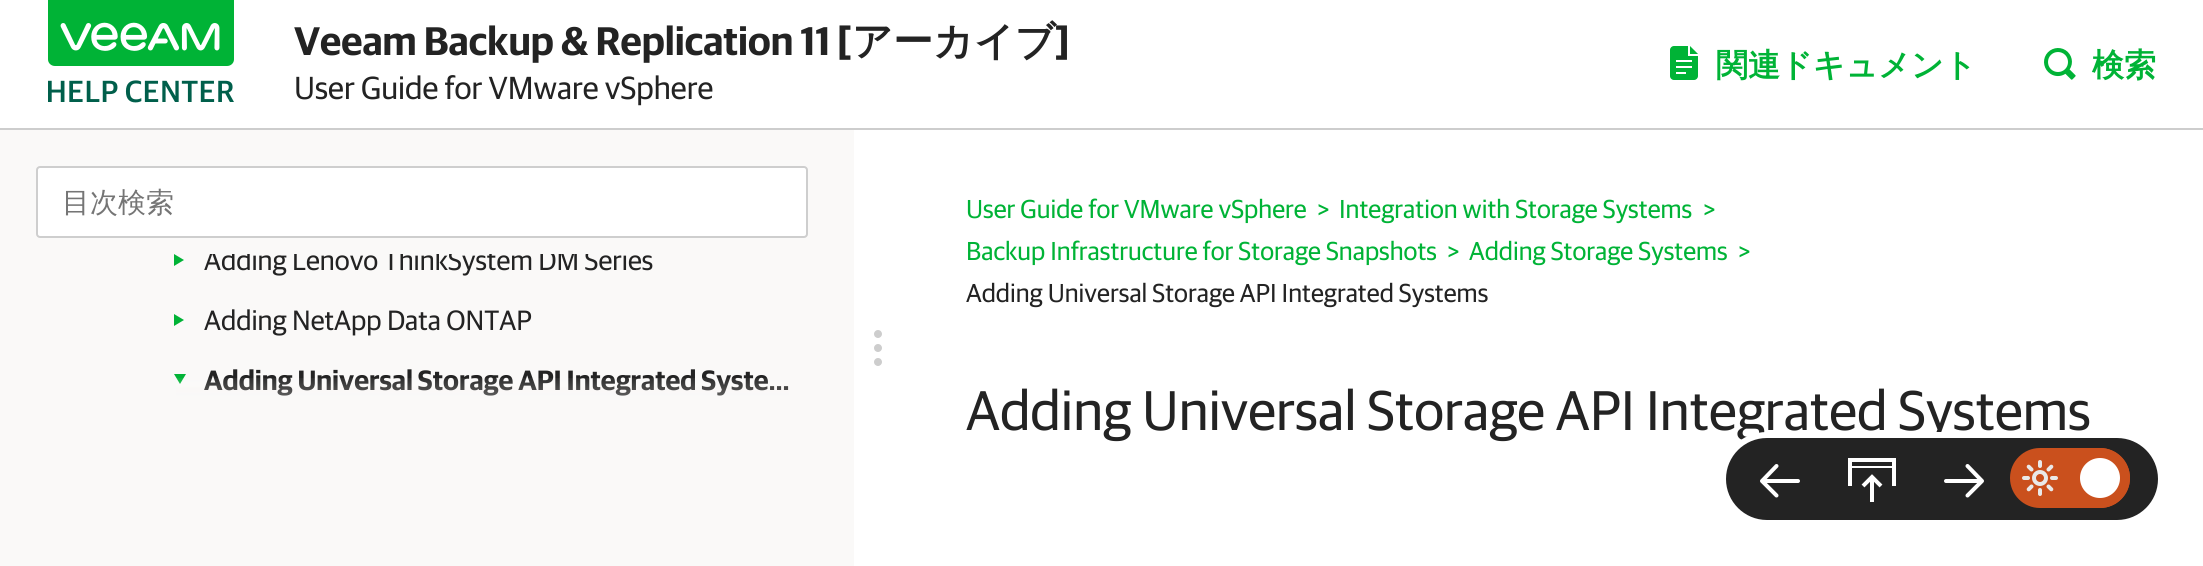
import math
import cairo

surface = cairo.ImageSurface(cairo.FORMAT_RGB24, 2203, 566)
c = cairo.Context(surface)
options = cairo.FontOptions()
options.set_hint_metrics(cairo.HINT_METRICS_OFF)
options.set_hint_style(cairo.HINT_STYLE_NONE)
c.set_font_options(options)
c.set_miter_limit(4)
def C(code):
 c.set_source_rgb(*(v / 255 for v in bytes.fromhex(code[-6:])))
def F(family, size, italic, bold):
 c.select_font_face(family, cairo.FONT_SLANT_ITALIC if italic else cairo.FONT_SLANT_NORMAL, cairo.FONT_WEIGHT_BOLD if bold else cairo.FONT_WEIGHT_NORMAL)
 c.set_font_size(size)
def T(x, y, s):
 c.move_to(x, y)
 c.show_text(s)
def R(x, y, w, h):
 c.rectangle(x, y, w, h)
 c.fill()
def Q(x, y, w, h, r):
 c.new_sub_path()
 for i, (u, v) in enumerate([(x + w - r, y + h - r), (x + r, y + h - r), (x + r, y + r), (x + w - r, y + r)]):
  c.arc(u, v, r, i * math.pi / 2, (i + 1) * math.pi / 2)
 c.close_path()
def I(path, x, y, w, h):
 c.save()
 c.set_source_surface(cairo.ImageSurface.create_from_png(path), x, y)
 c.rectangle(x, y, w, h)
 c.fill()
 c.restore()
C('ffffff')
c.paint()
C('cdcdcd')
R(0,128,2203,2)
I('1.png',48,0,186,103)
F('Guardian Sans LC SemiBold',40,0,0)
C('232323')
T(294,55,'Veeam Backup & Replication 11 [')
F('WenQuanYi Zen Hei',40,0,1)
T(852,55,'アーカイブ')
F('Guardian Sans LC SemiBold',40,0,0)
T(1055,55,']')
F('Guardian Sans LC',32,0,0)
T(294,99,'User Guide for VMware vSphere')
I('2.png',1670,46,28,34)
F('WenQuanYi Zen Hei',32,0,1)
C('00b336')
T(1716,76,'関連ドキュメント')
I('3.png',2044,48,32,32)
T(2092,76,'検索')
C('faf9f8')
R(0,130,854,436)
C('ffffff')
Q(37,167,770,70,3)
c.fill_preserve()
C('cecece')
c.stroke()
F('WenQuanYi Zen Hei Medium',28,0,0)
C('757575')
T(62,212,'目次検索')
C('00b336')
c.new_path()
c.move_to(174,266)
c.line_to(174,254)
c.line_to(184,260)
c.close_path()
c.fill()
c.save()
c.rectangle(204,254,600,36)
c.clip()
F('Guardian Sans LC',28,0,0)
C('232323')
T(204,270,'Adding Lenovo ThinkSystem DM Series')
c.restore()
c.new_path()
c.move_to(174,326)
c.line_to(174,314)
c.line_to(184,320)
c.close_path()
c.fill()
F('Guardian Sans LC',28,0,0)
C('232323')
T(204,330,'Adding NetApp Data ONTAP')
C('00b336')
c.new_path()
c.move_to(174,374)
c.line_to(186,374)
c.line_to(180,384)
c.close_path()
c.fill()
F('Guardian Sans LC SemiBold',28,0,0)
C('232323')
T(204,390,'Adding Universal Storage API Integrated Syste…')
gradient = cairo.LinearGradient(414,378,414,458)
gradient.add_color_stop_rgba(0,0.98,0.976,0.973,.05)
gradient.add_color_stop_rgba(1,0.98,0.976,0.973,1)
c.set_source(gradient)
R(176,378,613,18)
F('Guardian Sans LC',26,0,0)
C('00b336')
T(966,218,'User Guide for VMware vSphere')
T(1317,218,'>')
T(1339,218,'Integration with Storage Systems')
T(1703,218,'>')
T(966,260,'Backup Infrastructure for Storage Snapshots')
T(1447,260,'>')
T(1469,260,'Adding Storage Systems')
T(1738,260,'>')
C('232323')
T(966,302,'Adding Universal Storage API Integrated Systems')
I('4.png',874,330,8,36)
F('Guardian Sans LC',56,0,0)
T(966,430,'Adding Universal Storage API Integrated Systems')
Q(1723,435,438,88,44)
c.fill_preserve()
C('ffffff')
c.set_line_width(6)
c.stroke()
c.new_path()
c.move_to(1776.5,495.5)
c.line_to(1762,481)
c.move_to(1762,481)
c.line_to(1776.5,466)
c.move_to(1762,481)
c.line_to(1798,481)
c.set_line_width(4)
c.set_line_cap(cairo.LINE_CAP_ROUND)
c.set_line_join(cairo.LINE_JOIN_ROUND)
c.stroke()
R(1870,477,4,25)
c.new_path()
c.move_to(1863,486)
c.line_to(1872,477)
c.line_to(1881,486)
c.set_line_cap(cairo.LINE_CAP_BUTT)
c.set_line_join(cairo.LINE_JOIN_MITER)
c.stroke()
R(1850,466,44,2)
c.new_path()
c.move_to(1850,486)
c.line_to(1850,460)
c.line_to(1894,460)
c.line_to(1894,486)
c.stroke()
c.new_path()
c.move_to(1967.5,466)
c.line_to(1982,481)
c.move_to(1982,481)
c.line_to(1967.5,495.5)
c.move_to(1982,481)
c.line_to(1946,481)
c.set_line_cap(cairo.LINE_CAP_ROUND)
c.set_line_join(cairo.LINE_JOIN_ROUND)
c.stroke()
C('ca501d')
Q(2010,448,120,60,30)
c.fill()
I('5.png',2022,460,36,36)
C('ffffff')
c.arc(2100,478,25,0,2 * math.pi)
c.fill_preserve()
C('ca501d')
c.set_line_width(10)
c.set_line_cap(cairo.LINE_CAP_BUTT)
c.set_line_join(cairo.LINE_JOIN_MITER)
c.stroke()
surface.write_to_png('o.png')
